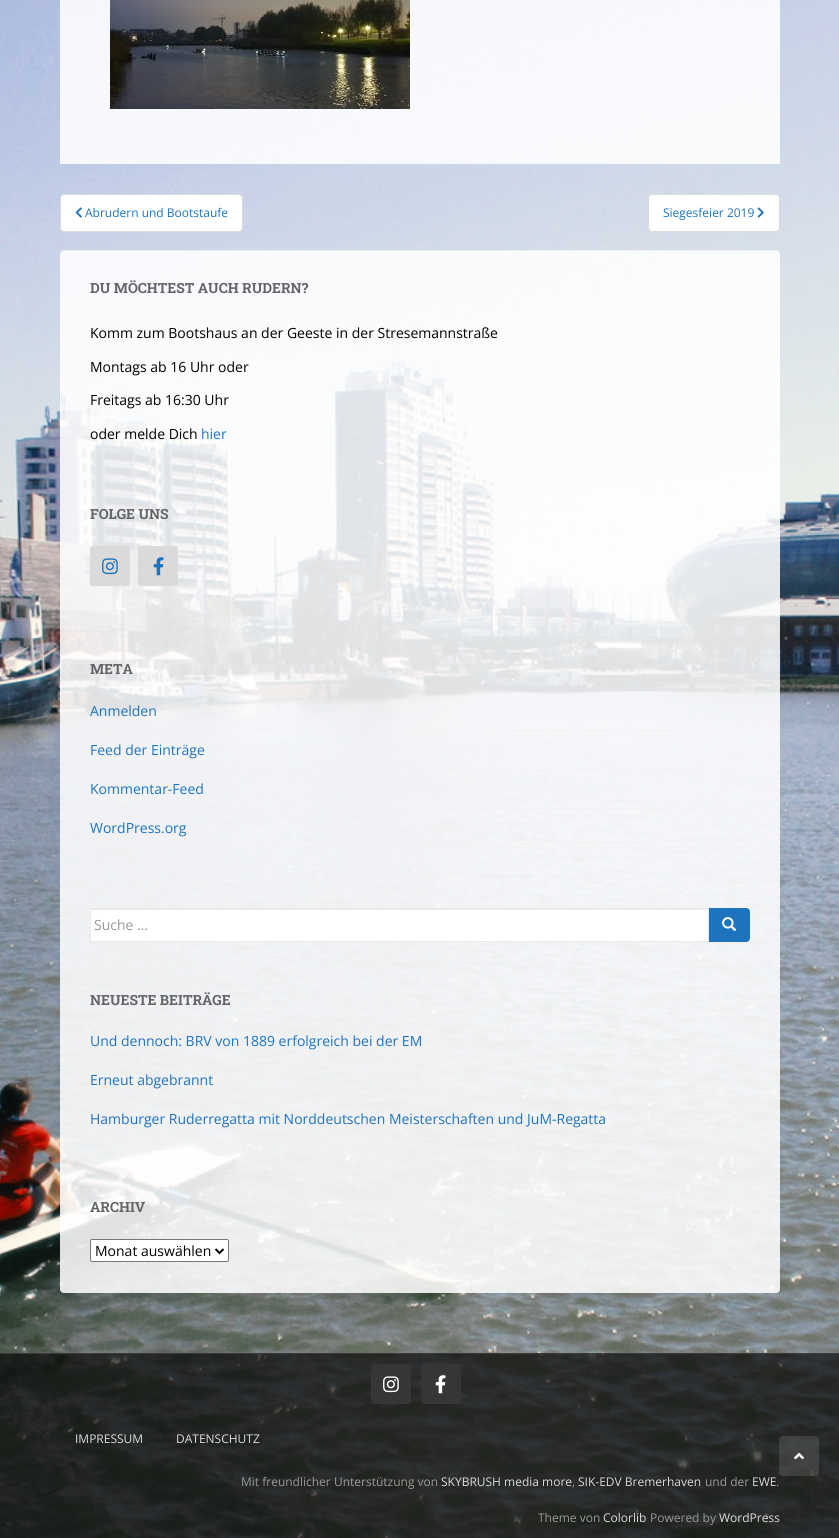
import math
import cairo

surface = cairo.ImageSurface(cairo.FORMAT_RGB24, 839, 1538)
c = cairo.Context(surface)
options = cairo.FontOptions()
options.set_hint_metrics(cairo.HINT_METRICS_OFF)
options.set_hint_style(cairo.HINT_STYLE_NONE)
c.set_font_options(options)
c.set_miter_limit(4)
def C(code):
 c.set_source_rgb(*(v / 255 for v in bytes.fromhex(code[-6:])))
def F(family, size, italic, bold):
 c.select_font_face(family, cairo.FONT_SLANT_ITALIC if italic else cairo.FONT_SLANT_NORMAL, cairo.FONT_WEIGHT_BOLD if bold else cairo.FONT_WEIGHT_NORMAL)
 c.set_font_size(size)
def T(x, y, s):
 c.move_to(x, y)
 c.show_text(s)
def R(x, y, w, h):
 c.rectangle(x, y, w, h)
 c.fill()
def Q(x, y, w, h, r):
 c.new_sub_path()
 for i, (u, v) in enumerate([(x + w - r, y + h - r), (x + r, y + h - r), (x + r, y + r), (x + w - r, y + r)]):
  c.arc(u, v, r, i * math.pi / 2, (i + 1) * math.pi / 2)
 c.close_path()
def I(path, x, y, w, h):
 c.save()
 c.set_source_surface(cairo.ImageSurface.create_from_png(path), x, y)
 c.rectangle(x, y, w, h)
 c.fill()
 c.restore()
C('ffffff')
c.paint()
I('1.png',0,0,839,1538)
c.set_source_rgba(1,1,1,0.87)
R(60,0,720,164)
I('2.png',110,0,300,109)
C('ffffff')
Q(60.5,194.5,182,37,3.5)
c.fill_preserve()
C('dadada')
c.set_line_width(1)
c.stroke()
I('3.png',75,207,7,11)
F('Open Sans',12,0,0)
C('1e73be')
T(85,217,'Abrudern und Bootstaufe')
C('ffffff')
Q(648.5,194.5,131,37,3.5)
c.fill_preserve()
C('dadada')
c.stroke()
C('1e73be')
T(663,217,'Siegesfeier 2019')
I('4.png',757,207,7,11)
c.set_source_rgba(1,1,1,0.87)
Q(60,250,720,1043,4)
c.fill()
c.set_source_rgba(0,0,0,0.05)
c.new_path()
c.move_to(64,251)
c.line_to(776,251)
c.curve_to(778,251,780,253,780,255)
c.curve_to(780,252,779,250,776,250)
c.line_to(64,250)
c.line_to(61,251)
c.line_to(60,252)
c.line_to(60,255)
c.curve_to(60,253,62,251,64,251)
c.close_path()
c.fill()
F('Roboto Slab',14,0,1)
C('636467')
T(90,293,'DU MÖCHTEST AUCH RUDERN?')
F('Open Sans',14,0,0)
C('000000')
T(90,338,'Komm zum Bootshaus an der Geeste in der Stresemannstraße')
T(90,372,'Montags ab 16 Uhr oder')
T(90,405,'Freitags ab 16:30 Uhr')
T(90,439,'oder melde Dich')
C('1e73be')
T(201,439,'hier')
F('Roboto Slab',14,0,1)
C('636467')
T(90,519,'FOLGE UNS')
C('dadada')
Q(90,546,40,40,3)
c.fill()
I('5.png',102,558,16,17)
Q(138,546,40,40,3)
c.fill()
I('6.png',153,557,11,19)
C('636467')
T(90,674,'META')
C('f2f2f2')
R(100,730,650,1)
F('Open Sans',14,0,0)
C('1e73be')
T(90,716,'Anmelden')
C('f2f2f2')
R(90,769,660,1)
C('1e73be')
T(90,755,'Feed der Einträge')
C('f2f2f2')
R(90,808,660,1)
C('1e73be')
T(90,794,'Kommentar-Feed')
C('f2f2f2')
R(90,847,660,1)
C('1e73be')
T(90,833,'WordPress.org')
C('ffffff')
R(91,910,617,31)
C('ececec')
R(91,909,617,1)
c.rectangle(90.5,908.5,618,33)
C('e8e8e8')
c.stroke()
C('999999')
T(94,930,'Suche …')
C('1e73be')
c.new_path()
c.move_to(709.5,908.5)
c.line_to(746,908.5)
c.curve_to(748,908.5,749.5,910,749.5,912)
c.line_to(749.5,938)
c.curve_to(749.5,940,748,941.5,746,941.5)
c.line_to(709.5,941.5)
c.close_path()
c.fill_preserve()
c.stroke()
I('7.png',722,917,15,14)
F('Roboto Slab',14,0,1)
C('636467')
T(90,1005,'NEUESTE BEITRÄGE')
C('f2f2f2')
R(90,1060,660,1)
F('Open Sans',14,0,0)
C('1e73be')
T(90,1046,'Und dennoch: BRV von 1889 erfolgreich bei der EM')
C('f2f2f2')
R(90,1099,660,1)
C('1e73be')
T(90,1085,'Erneut abgebrannt')
C('f2f2f2')
R(90,1138,648,1)
C('1e73be')
T(90,1124,'Hamburger Ruderregatta mit Norddeutschen Meisterschaften und JuM-Regatta')
F('Roboto Slab',14,0,1)
C('636467')
T(90,1212,'ARCHIV')
C('ffffff')
Q(90.5,1239.5,138,22,1.5)
c.fill_preserve()
C('767676')
c.stroke()
c.new_path()
c.move_to(215.5,1249)
c.line_to(219.5,1253)
c.line_to(223.5,1249)
C('000000')
c.set_line_width(2)
c.stroke()
F('Open Sans',14,0,0)
T(95,1256,'Monat auswählen')
c.set_source_rgba(0,0,0,0.42)
R(0,1354,839,184)
R(0,1354,839,184)
C('3a3a3a')
R(0,1353,839,1)
C('363636')
Q(371,1364,40,40,3)
c.fill()
I('8.png',383,1376,16,17)
Q(421,1364,40,40,3)
c.fill()
I('9.png',435,1375,11,19)
F('Open Sans',12,0,0)
C('dadada')
T(75,1443,'IMPRESSUM')
T(176,1443,'DATENSCHUTZ')
C('999999')
T(241,1486,'Mit freundlicher Unterstützung von')
C('dadada')
T(441,1486,'SKYBRUSH media more')
C('999999')
T(572,1486,',')
C('dadada')
T(578,1486,'SIK-EDV Bremerhaven')
C('999999')
T(705,1486,'und der')
C('dadada')
T(752,1486,'EWE')
C('999999')
T(776,1486,'.')
T(538,1522,'Theme von')
C('dadada')
T(603,1522,'Colorlib')
C('999999')
T(650,1522,'Powered by')
C('dadada')
T(719,1522,'WordPress')
c.set_source_rgba(0.392,0.392,0.392,0.4)
Q(779,1436,40,40,4)
c.fill()
I('10.png',794,1452,10,8)
surface.write_to_png('o.png')
